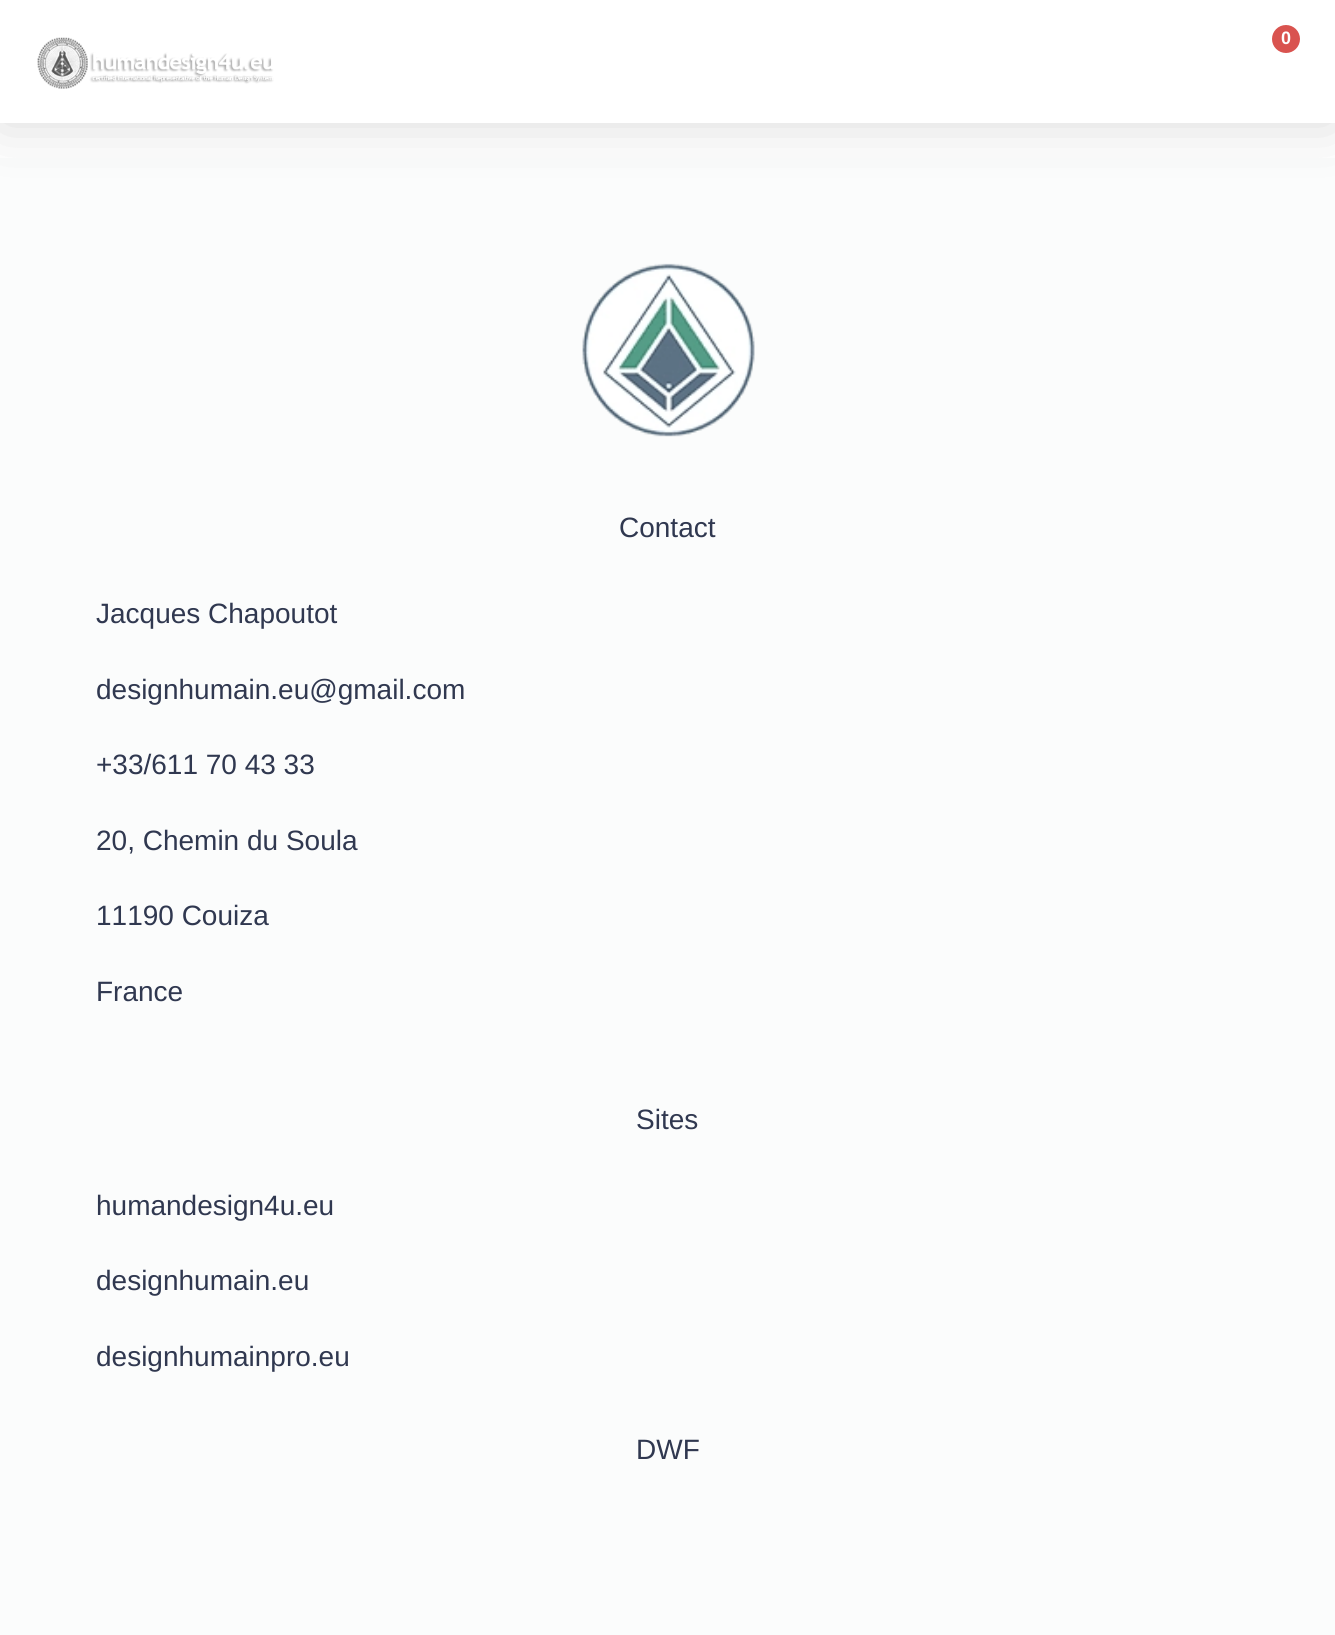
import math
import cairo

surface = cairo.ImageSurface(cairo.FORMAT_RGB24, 1335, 1635)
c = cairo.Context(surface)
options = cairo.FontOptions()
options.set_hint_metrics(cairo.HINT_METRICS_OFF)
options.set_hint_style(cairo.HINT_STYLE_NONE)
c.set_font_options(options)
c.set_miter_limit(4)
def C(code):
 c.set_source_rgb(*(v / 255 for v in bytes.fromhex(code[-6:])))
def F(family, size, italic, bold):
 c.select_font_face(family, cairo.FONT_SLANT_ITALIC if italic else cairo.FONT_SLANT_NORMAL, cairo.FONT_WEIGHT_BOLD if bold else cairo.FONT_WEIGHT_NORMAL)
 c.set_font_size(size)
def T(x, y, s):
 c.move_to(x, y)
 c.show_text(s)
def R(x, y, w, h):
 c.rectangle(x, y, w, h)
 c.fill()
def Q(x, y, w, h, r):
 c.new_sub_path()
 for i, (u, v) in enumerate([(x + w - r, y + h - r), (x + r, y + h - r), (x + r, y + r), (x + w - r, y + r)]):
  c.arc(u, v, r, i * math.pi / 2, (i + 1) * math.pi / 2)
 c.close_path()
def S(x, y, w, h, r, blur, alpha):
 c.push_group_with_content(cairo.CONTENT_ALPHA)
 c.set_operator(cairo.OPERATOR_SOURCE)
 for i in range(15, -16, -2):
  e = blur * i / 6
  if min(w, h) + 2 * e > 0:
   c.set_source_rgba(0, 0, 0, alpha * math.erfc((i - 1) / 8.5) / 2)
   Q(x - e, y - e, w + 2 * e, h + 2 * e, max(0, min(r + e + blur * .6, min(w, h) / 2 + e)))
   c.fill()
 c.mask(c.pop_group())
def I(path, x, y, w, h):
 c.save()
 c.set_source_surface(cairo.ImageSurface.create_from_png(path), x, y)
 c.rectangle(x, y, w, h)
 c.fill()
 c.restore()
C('ffffff')
c.paint()
C('fbfcfc')
R(0,158,1335,1477)
C('000000')
S(0,0,1335,123,0,30,.15)
C('ffffff')
R(0,0,1335,123)
I('1.png',37,37,237,52)
C('d9534f')
c.arc(1286,39,14,0,2 * math.pi)
c.fill()
F('Liberation Sans',18,0,1)
C('ffffff')
T(1281,44,'0')
I('2.png',582,263,173,174)
F('Liberation Sans',28,0,0)
C('303850')
T(619,537,'Contact')
T(96,623,'Jacques Chapoutot')
T(96,699,'designhumain.eu@gmail.com')
T(96,774,'+33/611 70 43 33')
T(96,850,'20, Chemin du Soula')
T(96,925,'11190 Couiza')
T(96,1001,'France')
T(636,1129,'Sites')
T(96,1215,'humandesign4u.eu')
T(96,1290,'designhumain.eu')
T(96,1366,'designhumainpro.eu')
T(636,1459,'DWF')
surface.write_to_png('o.png')
